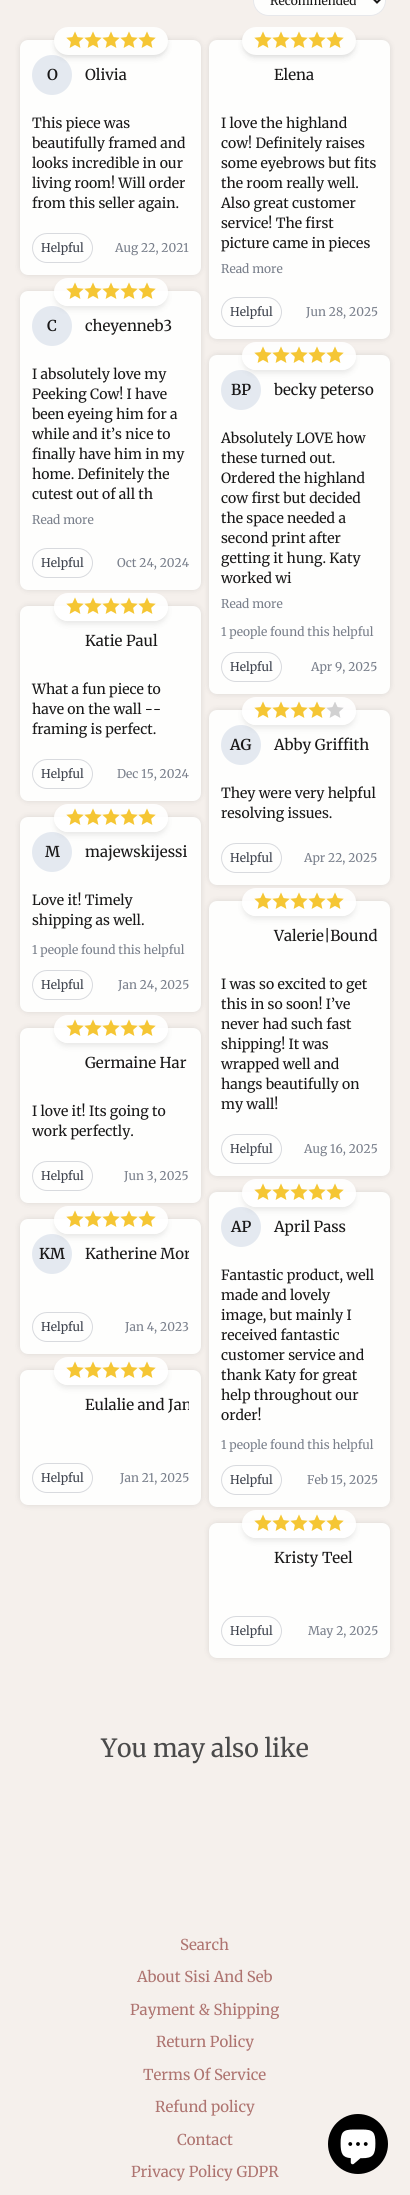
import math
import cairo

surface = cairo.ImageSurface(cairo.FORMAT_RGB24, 410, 2195)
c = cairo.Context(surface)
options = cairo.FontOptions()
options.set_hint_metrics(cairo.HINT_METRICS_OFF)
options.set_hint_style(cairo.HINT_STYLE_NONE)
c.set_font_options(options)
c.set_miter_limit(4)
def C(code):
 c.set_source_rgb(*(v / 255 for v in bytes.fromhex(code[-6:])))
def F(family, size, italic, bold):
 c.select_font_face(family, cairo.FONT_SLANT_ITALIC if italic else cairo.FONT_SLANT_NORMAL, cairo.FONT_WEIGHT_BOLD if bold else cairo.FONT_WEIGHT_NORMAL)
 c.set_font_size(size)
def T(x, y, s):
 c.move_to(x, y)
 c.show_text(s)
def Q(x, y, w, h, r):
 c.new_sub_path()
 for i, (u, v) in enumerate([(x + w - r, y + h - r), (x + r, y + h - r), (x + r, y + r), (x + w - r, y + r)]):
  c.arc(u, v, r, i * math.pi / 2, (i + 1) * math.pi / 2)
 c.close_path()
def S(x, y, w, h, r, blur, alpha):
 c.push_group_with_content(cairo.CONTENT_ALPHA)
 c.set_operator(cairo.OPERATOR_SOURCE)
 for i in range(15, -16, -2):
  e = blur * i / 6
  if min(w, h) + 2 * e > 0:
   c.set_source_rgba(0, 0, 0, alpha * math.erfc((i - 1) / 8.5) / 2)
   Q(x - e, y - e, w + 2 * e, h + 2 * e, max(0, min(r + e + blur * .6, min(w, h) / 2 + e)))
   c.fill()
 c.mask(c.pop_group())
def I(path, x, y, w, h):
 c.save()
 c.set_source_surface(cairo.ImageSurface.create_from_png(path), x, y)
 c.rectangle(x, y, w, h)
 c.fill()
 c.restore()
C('f5f0ec')
c.paint()
C('fefefd')
Q(253.5,-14.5,132,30,15)
c.fill_preserve()
C('e7e8eb')
c.set_line_width(1)
c.stroke()
c.new_path()
c.move_to(373,-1.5)
c.line_to(377,2.5)
c.line_to(381,-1.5)
C('191818')
c.set_line_width(2)
c.stroke()
F('Merriweather',12,0,0)
T(270,5,'Recommended')
C('191818')
S(20,40,181,235,8,3,.12)
C('fefefd')
Q(20,40,181,235,8)
c.fill()
C('e4e9f0')
c.arc(52,75,20,0,2 * math.pi)
c.fill()
C('191818')
S(56,31,110,24,12,2,.1)
S(55,32,112,26,13,3,.1)
C('fefefd')
Q(54,27,114,28,14)
c.fill()
I('1.png',66,31,18,17)
I('1.png',84,31,18,17)
I('1.png',102,31,18,17)
I('1.png',120,31,18,17)
I('1.png',138,31,18,17)
F('Merriweather SemiBold',15,0,0)
C('191818')
T(47,80,'O')
F('Merriweather',15,0,0)
T(85,80,'Olivia')
F('Merriweather',14,0,0)
T(32,128,'This piece was')
T(32,148,'beautifully framed and')
T(32,168,'looks incredible in our')
T(32,188,'living room! Will order')
T(32,208,'from this seller again.')
Q(32.5,233.5,60,29,14.5)
C('d8dade')
c.set_line_width(1)
c.stroke()
F('Merriweather',12,0,0)
C('3c414c')
T(41,252,'Helpful')
C('797f8b')
T(115,252,'Aug 22, 2021')
C('191818')
S(20,291,181,299,8,3,.12)
C('fefefd')
Q(20,291,181,299,8)
c.fill()
C('e4e9f0')
c.arc(52,326,20,0,2 * math.pi)
c.fill()
c.save()
c.set_fill_rule(cairo.FILL_RULE_EVEN_ODD)
c.new_path()
c.move_to(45,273)
c.line_to(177,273)
c.line_to(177,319)
c.line_to(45,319)
c.close_path()
c.move_to(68,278)
c.line_to(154,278)
c.curve_to(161.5,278,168,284.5,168,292)
c.curve_to(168,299.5,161.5,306,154,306)
c.line_to(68,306)
c.curve_to(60.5,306,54,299.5,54,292)
c.curve_to(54,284.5,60.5,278,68,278)
c.close_path()
c.clip()
C('000000')
S(55,283,112,26,13,3,.09)
c.restore()
c.set_source_rgba(1,1,1,0.9)
Q(54,278,114,28,14)
c.fill()
I('2.png',66,282,18,17)
I('2.png',84,282,18,17)
I('2.png',102,282,18,17)
I('2.png',120,282,18,17)
I('2.png',138,282,18,17)
F('Merriweather SemiBold',15,0,0)
C('191818')
T(47,331,'C')
F('Merriweather',15,0,0)
T(85,331,'cheyenneb3')
F('Merriweather',14,0,0)
T(32,379,'I absolutely love my')
T(32,399,'Peeking Cow! I have')
T(32,419,'been eyeing him for a')
T(32,439,'while and it’s nice to')
T(32,459,'finally have him in my')
T(32,479,'home. Definitely the')
T(32,499,'cutest out of all th')
F('Merriweather',12,0,0)
C('797f8b')
T(32,524,'Read more')
Q(32.5,548.5,60,29,14.5)
C('d8dade')
c.stroke()
C('3c414c')
T(41,567,'Helpful')
C('797f8b')
T(117,567,'Oct 24, 2024')
C('191818')
S(20,606,181,195,8,3,.12)
C('fefefd')
Q(20,606,181,195,8)
c.fill()
c.save()
c.set_fill_rule(cairo.FILL_RULE_EVEN_ODD)
c.new_path()
c.move_to(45,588)
c.line_to(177,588)
c.line_to(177,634)
c.line_to(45,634)
c.close_path()
c.move_to(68,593)
c.line_to(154,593)
c.curve_to(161.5,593,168,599.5,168,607)
c.curve_to(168,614.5,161.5,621,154,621)
c.line_to(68,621)
c.curve_to(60.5,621,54,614.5,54,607)
c.curve_to(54,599.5,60.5,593,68,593)
c.close_path()
c.clip()
C('000000')
S(55,598,112,26,13,3,.09)
c.restore()
c.set_source_rgba(1,1,1,0.9)
Q(54,593,114,28,14)
c.fill()
I('2.png',66,597,18,17)
I('2.png',84,597,18,17)
I('2.png',102,597,18,17)
I('2.png',120,597,18,17)
I('2.png',138,597,18,17)
F('Merriweather',15,0,0)
C('191818')
T(85,646,'Katie Paul')
F('Merriweather',14,0,0)
T(32,694,'What a fun piece to')
T(32,714,'have on the wall --')
T(32,734,'framing is perfect.')
Q(32.5,759.5,60,29,14.5)
C('d8dade')
c.stroke()
F('Merriweather',12,0,0)
C('3c414c')
T(41,778,'Helpful')
C('797f8b')
T(117,778,'Dec 15, 2024')
C('191818')
S(20,817,181,195,8,3,.12)
C('fefefd')
Q(20,817,181,195,8)
c.fill()
C('e4e9f0')
c.arc(52,852,20,0,2 * math.pi)
c.fill()
c.save()
c.set_fill_rule(cairo.FILL_RULE_EVEN_ODD)
c.new_path()
c.move_to(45,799)
c.line_to(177,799)
c.line_to(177,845)
c.line_to(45,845)
c.close_path()
c.move_to(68,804)
c.line_to(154,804)
c.curve_to(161.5,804,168,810.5,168,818)
c.curve_to(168,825.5,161.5,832,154,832)
c.line_to(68,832)
c.curve_to(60.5,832,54,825.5,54,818)
c.curve_to(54,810.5,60.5,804,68,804)
c.close_path()
c.clip()
C('000000')
S(55,809,112,26,13,3,.09)
c.restore()
c.set_source_rgba(1,1,1,0.9)
Q(54,804,114,28,14)
c.fill()
I('2.png',66,808,18,17)
I('2.png',84,808,18,17)
I('2.png',102,808,18,17)
I('2.png',120,808,18,17)
I('2.png',138,808,18,17)
F('Merriweather SemiBold',15,0,0)
C('191818')
T(45,857,'M')
F('Merriweather',15,0,0)
T(85,857,'majewskijessi')
F('Merriweather',14,0,0)
T(32,905,'Love it! Timely')
T(32,925,'shipping as well.')
F('Merriweather',12,0,0)
C('797f8b')
T(32,954,'1 people found this helpful')
Q(32.5,970.5,60,29,14.5)
C('d8dade')
c.stroke()
C('3c414c')
T(41,989,'Helpful')
C('797f8b')
T(118,989,'Jan 24, 2025')
C('191818')
S(20,1028,181,175,8,3,.12)
C('fefefd')
Q(20,1028,181,175,8)
c.fill()
c.save()
c.set_fill_rule(cairo.FILL_RULE_EVEN_ODD)
c.new_path()
c.move_to(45,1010)
c.line_to(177,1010)
c.line_to(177,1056)
c.line_to(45,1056)
c.close_path()
c.move_to(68,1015)
c.line_to(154,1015)
c.curve_to(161.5,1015,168,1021.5,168,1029)
c.curve_to(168,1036.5,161.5,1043,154,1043)
c.line_to(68,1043)
c.curve_to(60.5,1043,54,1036.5,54,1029)
c.curve_to(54,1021.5,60.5,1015,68,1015)
c.close_path()
c.clip()
C('000000')
S(55,1020,112,26,13,3,.09)
c.restore()
c.set_source_rgba(1,1,1,0.9)
Q(54,1015,114,28,14)
c.fill()
I('2.png',66,1019,18,17)
I('2.png',84,1019,18,17)
I('2.png',102,1019,18,17)
I('2.png',120,1019,18,17)
I('2.png',138,1019,18,17)
F('Merriweather',15,0,0)
C('191818')
T(85,1068,'Germaine Har')
F('Merriweather',14,0,0)
T(32,1116,'I love it! Its going to')
T(32,1136,'work perfectly.')
Q(32.5,1161.5,60,29,14.5)
C('d8dade')
c.stroke()
F('Merriweather',12,0,0)
C('3c414c')
T(41,1180,'Helpful')
C('797f8b')
T(124,1180,'Jun 3, 2025')
C('191818')
S(20,1219,181,135,8,3,.12)
C('fefefd')
Q(20,1219,181,135,8)
c.fill()
C('e4e9f0')
c.arc(52,1254,20,0,2 * math.pi)
c.fill()
c.save()
c.set_fill_rule(cairo.FILL_RULE_EVEN_ODD)
c.new_path()
c.move_to(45,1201)
c.line_to(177,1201)
c.line_to(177,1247)
c.line_to(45,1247)
c.close_path()
c.move_to(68,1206)
c.line_to(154,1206)
c.curve_to(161.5,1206,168,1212.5,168,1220)
c.curve_to(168,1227.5,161.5,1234,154,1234)
c.line_to(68,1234)
c.curve_to(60.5,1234,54,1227.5,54,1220)
c.curve_to(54,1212.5,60.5,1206,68,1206)
c.close_path()
c.clip()
C('000000')
S(55,1211,112,26,13,3,.09)
c.restore()
c.set_source_rgba(1,1,1,0.9)
Q(54,1206,114,28,14)
c.fill()
I('2.png',66,1210,18,17)
I('2.png',84,1210,18,17)
I('2.png',102,1210,18,17)
I('2.png',120,1210,18,17)
I('2.png',138,1210,18,17)
F('Merriweather SemiBold',15,0,0)
C('191818')
T(39,1259,'KM')
c.save()
c.rectangle(85,1244,104,19)
c.clip()
F('Merriweather',15,0,0)
T(85,1259,'Katherine Mor')
c.restore()
Q(32.5,1312.5,60,29,14.5)
C('d8dade')
c.stroke()
F('Merriweather',12,0,0)
C('3c414c')
T(41,1331,'Helpful')
C('797f8b')
T(125,1331,'Jan 4, 2023')
C('191818')
S(20,1370,181,135,8,3,.12)
C('fefefd')
Q(20,1370,181,135,8)
c.fill()
c.save()
c.set_fill_rule(cairo.FILL_RULE_EVEN_ODD)
c.new_path()
c.move_to(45,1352)
c.line_to(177,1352)
c.line_to(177,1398)
c.line_to(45,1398)
c.close_path()
c.move_to(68,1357)
c.line_to(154,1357)
c.curve_to(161.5,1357,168,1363.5,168,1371)
c.curve_to(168,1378.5,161.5,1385,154,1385)
c.line_to(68,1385)
c.curve_to(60.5,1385,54,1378.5,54,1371)
c.curve_to(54,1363.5,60.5,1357,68,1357)
c.close_path()
c.clip()
C('000000')
S(55,1362,112,26,13,3,.09)
c.restore()
c.set_source_rgba(1,1,1,0.9)
Q(54,1357,114,28,14)
c.fill()
I('2.png',66,1361,18,17)
I('2.png',84,1361,18,17)
I('2.png',102,1361,18,17)
I('2.png',120,1361,18,17)
I('2.png',138,1361,18,17)
c.save()
c.rectangle(85,1395,104,19)
c.clip()
F('Merriweather',15,0,0)
C('191818')
T(85,1410,'Eulalie and Jan')
c.restore()
Q(32.5,1463.5,60,29,14.5)
C('d8dade')
c.stroke()
C('3c414c')
T(41,1482,'Helpful')
C('797f8b')
T(120,1482,'Jan 21, 2025')
C('000000')
S(209,40,181,299,8,3,.11)
C('fefefd')
Q(209,40,181,299,8)
c.fill()
C('191818')
S(244,31,110,24,12,2,.1)
S(243,32,112,26,13,3,.1)
C('fefefd')
Q(242,27,114,28,14)
c.fill()
I('1.png',254,31,18,17)
I('1.png',272,31,18,17)
I('1.png',290,31,18,17)
I('1.png',308,31,18,17)
I('1.png',326,31,18,17)
F('Merriweather',15,0,0)
C('191818')
T(274,80,'Elena')
F('Merriweather',14,0,0)
T(221,128,'I love the highland')
T(221,148,'cow! Definitely raises')
T(221,168,'some eyebrows but fits')
T(221,188,'the room really well.')
T(221,208,'Also great customer')
T(221,228,'service! The first')
T(221,248,'picture came in pieces')
F('Merriweather',12,0,0)
C('797f8b')
T(221,273,'Read more')
Q(221.5,297.5,60,29,14.5)
C('d8dade')
c.stroke()
C('3c414c')
T(230,316,'Helpful')
C('797f8b')
T(306,316,'Jun 28, 2025')
C('000000')
S(209,355,181,339,8,3,.11)
C('fefefd')
Q(209,355,181,339,8)
c.fill()
C('e4e9f0')
c.arc(241,390,20,0,2 * math.pi)
c.fill()
c.save()
c.set_fill_rule(cairo.FILL_RULE_EVEN_ODD)
c.new_path()
c.move_to(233,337)
c.line_to(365,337)
c.line_to(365,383)
c.line_to(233,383)
c.close_path()
c.move_to(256,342)
c.line_to(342,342)
c.curve_to(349.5,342,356,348.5,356,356)
c.curve_to(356,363.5,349.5,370,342,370)
c.line_to(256,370)
c.curve_to(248.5,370,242,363.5,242,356)
c.curve_to(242,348.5,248.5,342,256,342)
c.close_path()
c.clip()
C('000000')
S(243,347,112,26,13,3,.09)
c.restore()
c.set_source_rgba(1,1,1,0.9)
Q(242,342,114,28,14)
c.fill()
I('3.png',254,346,18,17)
I('3.png',272,346,18,17)
I('3.png',290,346,18,17)
I('3.png',308,346,18,17)
I('3.png',326,346,18,17)
F('Merriweather SemiBold',15,0,0)
C('191818')
T(231,395,'BP')
F('Merriweather',15,0,0)
T(274,395,'becky peterso')
F('Merriweather',14,0,0)
T(221,443,'Absolutely LOVE how')
T(221,463,'these turned out.')
T(221,483,'Ordered the highland')
T(221,503,'cow first but decided')
T(221,523,'the space needed a')
T(221,543,'second print after')
T(221,563,'getting it hung. Katy')
T(221,583,'worked wi')
F('Merriweather',12,0,0)
C('797f8b')
T(221,608,'Read more')
T(221,636,'1 people found this helpful')
Q(221.5,652.5,60,29,14.5)
C('d8dade')
c.stroke()
C('3c414c')
T(230,671,'Helpful')
C('797f8b')
T(311,671,'Apr 9, 2025')
C('000000')
S(209,710,181,175,8,3,.11)
C('fefefd')
Q(209,710,181,175,8)
c.fill()
C('e4e9f0')
c.arc(241,745,20,0,2 * math.pi)
c.fill()
c.save()
c.set_fill_rule(cairo.FILL_RULE_EVEN_ODD)
c.new_path()
c.move_to(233,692)
c.line_to(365,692)
c.line_to(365,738)
c.line_to(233,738)
c.close_path()
c.move_to(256,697)
c.line_to(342,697)
c.curve_to(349.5,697,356,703.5,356,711)
c.curve_to(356,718.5,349.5,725,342,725)
c.line_to(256,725)
c.curve_to(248.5,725,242,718.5,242,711)
c.curve_to(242,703.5,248.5,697,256,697)
c.close_path()
c.clip()
C('000000')
S(243,702,112,26,13,3,.09)
c.restore()
c.set_source_rgba(1,1,1,0.9)
Q(242,697,114,28,14)
c.fill()
I('3.png',254,701,18,17)
I('3.png',272,701,18,17)
I('3.png',290,701,18,17)
I('3.png',308,701,18,17)
I('4.png',326,702,18,16)
F('Merriweather SemiBold',15,0,0)
C('191818')
T(230,750,'AG')
F('Merriweather',15,0,0)
T(274,750,'Abby Griffith')
F('Merriweather',14,0,0)
T(221,798,'They were very helpful')
T(221,818,'resolving issues.')
Q(221.5,843.5,60,29,14.5)
C('d8dade')
c.stroke()
F('Merriweather',12,0,0)
C('3c414c')
T(230,862,'Helpful')
C('797f8b')
T(304,862,'Apr 22, 2025')
C('000000')
S(209,901,181,275,8,3,.11)
C('fefefd')
Q(209,901,181,275,8)
c.fill()
c.save()
c.set_fill_rule(cairo.FILL_RULE_EVEN_ODD)
c.new_path()
c.move_to(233,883)
c.line_to(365,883)
c.line_to(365,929)
c.line_to(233,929)
c.close_path()
c.move_to(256,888)
c.line_to(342,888)
c.curve_to(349.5,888,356,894.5,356,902)
c.curve_to(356,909.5,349.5,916,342,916)
c.line_to(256,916)
c.curve_to(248.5,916,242,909.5,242,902)
c.curve_to(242,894.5,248.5,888,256,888)
c.close_path()
c.clip()
C('000000')
S(243,893,112,26,13,3,.09)
c.restore()
c.set_source_rgba(1,1,1,0.9)
Q(242,888,114,28,14)
c.fill()
I('3.png',254,892,18,17)
I('3.png',272,892,18,17)
I('3.png',290,892,18,17)
I('3.png',308,892,18,17)
I('3.png',326,892,18,17)
F('Merriweather',15,0,0)
C('191818')
T(274,941,'Valerie|Bound')
F('Merriweather',14,0,0)
T(221,989,'I was so excited to get')
T(221,1009,'this in so soon! I’ve')
T(221,1029,'never had such fast')
T(221,1049,'shipping! It was')
T(221,1069,'wrapped well and')
T(221,1089,'hangs beautifully on')
T(221,1109,'my wall!')
Q(221.5,1134.5,60,29,14.5)
C('d8dade')
c.stroke()
F('Merriweather',12,0,0)
C('3c414c')
T(230,1153,'Helpful')
C('797f8b')
T(304,1153,'Aug 16, 2025')
C('000000')
S(209,1192,181,315,8,3,.11)
C('fefefd')
Q(209,1192,181,315,8)
c.fill()
C('e4e9f0')
c.arc(241,1227,20,0,2 * math.pi)
c.fill()
c.save()
c.set_fill_rule(cairo.FILL_RULE_EVEN_ODD)
c.new_path()
c.move_to(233,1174)
c.line_to(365,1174)
c.line_to(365,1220)
c.line_to(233,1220)
c.close_path()
c.move_to(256,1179)
c.line_to(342,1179)
c.curve_to(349.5,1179,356,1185.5,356,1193)
c.curve_to(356,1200.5,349.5,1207,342,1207)
c.line_to(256,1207)
c.curve_to(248.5,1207,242,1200.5,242,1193)
c.curve_to(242,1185.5,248.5,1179,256,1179)
c.close_path()
c.clip()
C('000000')
S(243,1184,112,26,13,3,.09)
c.restore()
c.set_source_rgba(1,1,1,0.9)
Q(242,1179,114,28,14)
c.fill()
I('3.png',254,1183,18,17)
I('3.png',272,1183,18,17)
I('3.png',290,1183,18,17)
I('3.png',308,1183,18,17)
I('3.png',326,1183,18,17)
F('Merriweather SemiBold',15,0,0)
C('191818')
T(231,1232,'AP')
F('Merriweather',15,0,0)
T(274,1232,'April Pass')
F('Merriweather',14,0,0)
T(221,1280,'Fantastic product, well')
T(221,1300,'made and lovely')
T(221,1320,'image, but mainly I')
T(221,1340,'received fantastic')
T(221,1360,'customer service and')
T(221,1380,'thank Katy for great')
T(221,1400,'help throughout our')
T(221,1420,'order!')
F('Merriweather',12,0,0)
C('797f8b')
T(221,1449,'1 people found this helpful')
Q(221.5,1465.5,60,29,14.5)
C('d8dade')
c.stroke()
C('3c414c')
T(230,1484,'Helpful')
C('797f8b')
T(307,1484,'Feb 15, 2025')
C('191818')
S(209,1523,181,135,8,3,.12)
C('fefefd')
Q(209,1523,181,135,8)
c.fill()
c.save()
c.set_fill_rule(cairo.FILL_RULE_EVEN_ODD)
c.new_path()
c.move_to(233,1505)
c.line_to(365,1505)
c.line_to(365,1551)
c.line_to(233,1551)
c.close_path()
c.move_to(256,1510)
c.line_to(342,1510)
c.curve_to(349.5,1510,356,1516.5,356,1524)
c.curve_to(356,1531.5,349.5,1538,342,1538)
c.line_to(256,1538)
c.curve_to(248.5,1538,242,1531.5,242,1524)
c.curve_to(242,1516.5,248.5,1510,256,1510)
c.close_path()
c.clip()
C('000000')
S(243,1515,112,26,13,3,.09)
c.restore()
c.set_source_rgba(1,1,1,0.9)
Q(242,1510,114,28,14)
c.fill()
I('2.png',254,1514,18,17)
I('2.png',272,1514,18,17)
I('2.png',290,1514,18,17)
I('2.png',308,1514,18,17)
I('2.png',326,1514,18,17)
F('Merriweather',15,0,0)
C('191818')
T(274,1563,'Kristy Teel')
Q(221.5,1616.5,60,29,14.5)
C('d8dade')
c.stroke()
F('Merriweather',12,0,0)
C('3c414c')
T(230,1635,'Helpful')
C('797f8b')
T(308,1635,'May 2, 2025')
F('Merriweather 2',25,0,0)
C('4a4a4a')
T(101,1757,'You may also like')
F('Merriweather',15,0,0)
C('ae7470')
T(180,1950,'Search')
T(137,1982,'About Sisi And Seb')
T(130,2015,'Payment & Shipping')
T(156,2047,'Return Policy')
T(143,2080,'Terms Of Service')
T(155,2112,'Refund policy')
T(177,2145,'Contact')
T(131,2177,'Privacy Policy GDPR')
C('000000')
c.new_path()
c.arc(358,2144,30,0,2 * math.pi)
c.fill()
I('5.png',340,2129,36,36)
surface.write_to_png('o.png')
